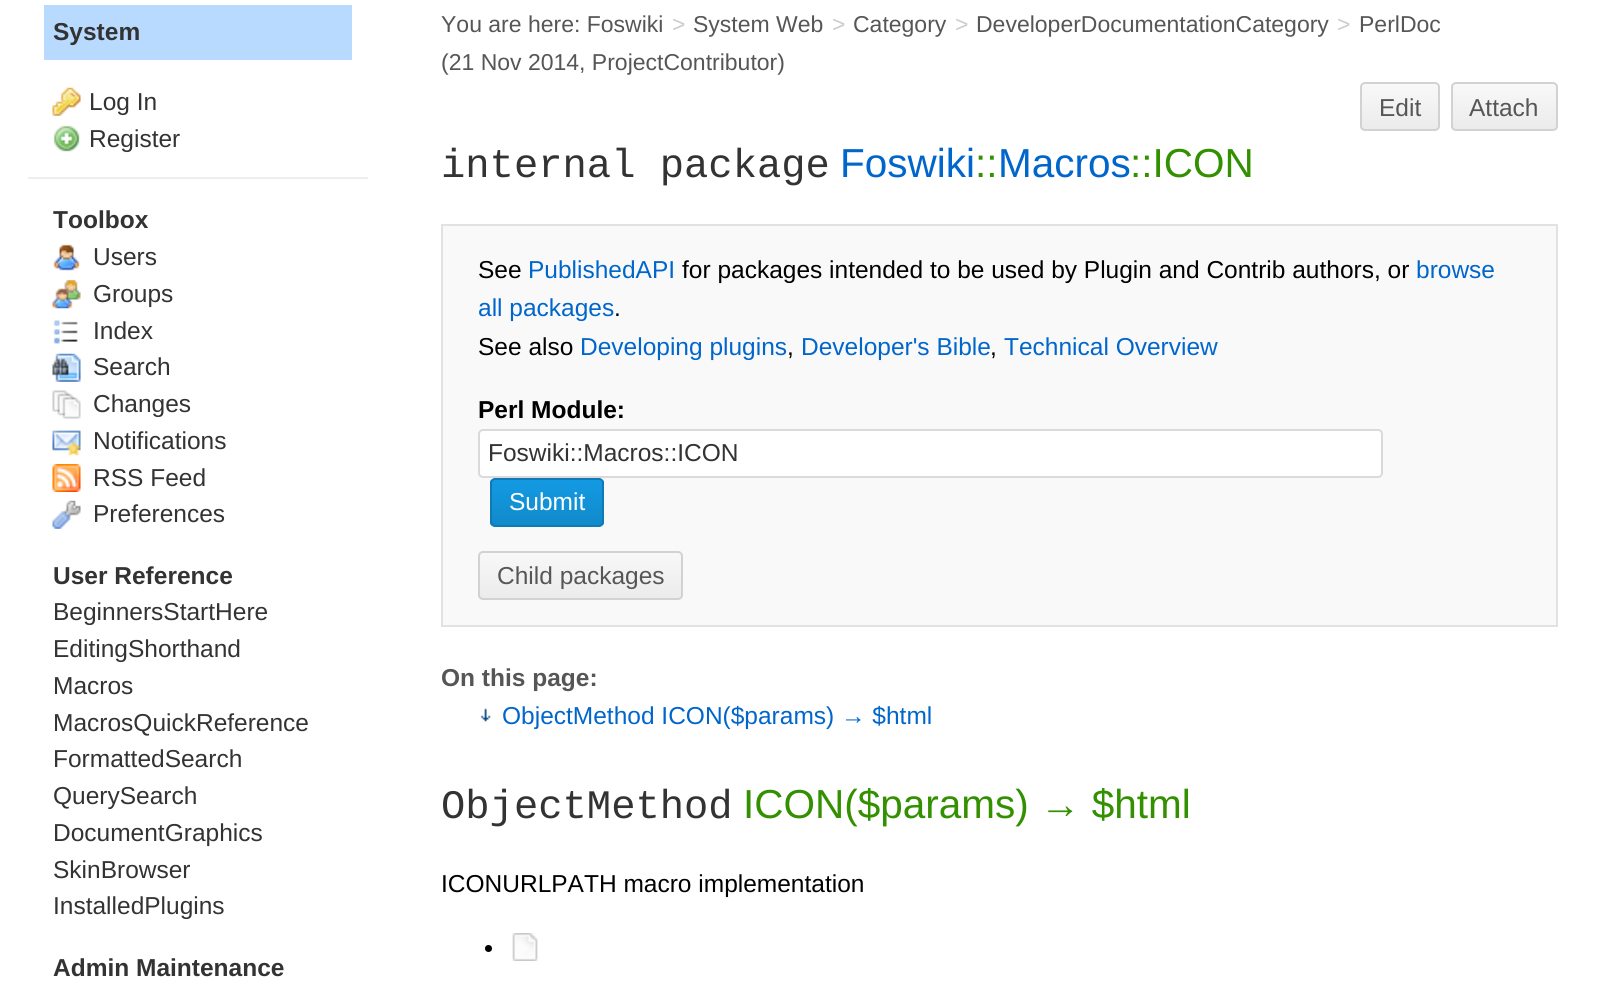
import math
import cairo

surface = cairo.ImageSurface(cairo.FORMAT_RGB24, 1606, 990)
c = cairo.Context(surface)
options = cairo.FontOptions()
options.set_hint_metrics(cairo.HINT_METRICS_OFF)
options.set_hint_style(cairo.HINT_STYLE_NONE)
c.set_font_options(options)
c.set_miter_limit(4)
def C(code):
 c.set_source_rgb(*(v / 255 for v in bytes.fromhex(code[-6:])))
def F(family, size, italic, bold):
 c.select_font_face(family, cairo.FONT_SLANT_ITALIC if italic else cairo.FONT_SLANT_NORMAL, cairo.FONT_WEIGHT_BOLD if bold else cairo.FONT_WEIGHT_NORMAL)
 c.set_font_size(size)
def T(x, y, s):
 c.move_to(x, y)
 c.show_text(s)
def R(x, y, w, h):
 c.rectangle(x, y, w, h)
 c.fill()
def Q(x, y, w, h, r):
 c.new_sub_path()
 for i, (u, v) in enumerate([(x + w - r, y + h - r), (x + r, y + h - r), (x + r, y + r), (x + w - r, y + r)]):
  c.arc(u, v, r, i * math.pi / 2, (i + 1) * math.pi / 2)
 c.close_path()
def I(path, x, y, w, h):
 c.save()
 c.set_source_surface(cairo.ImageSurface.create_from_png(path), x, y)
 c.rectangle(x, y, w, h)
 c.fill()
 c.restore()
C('ffffff')
c.paint()
C('b9daff')
R(44,5,308,55)
F('Liberation Sans',24.5,0,1)
C('333333')
T(53,40,'System')
C('eeeeee')
R(28,177,340,2)
I('1.png',52,87,29,29)
F('Liberation Sans',24.5,0,0)
C('333333')
T(89,110,'Log In')
I('2.png',53,125,27,27)
T(89,147,'Register')
F('Liberation Sans',24.5,0,1)
T(53,228,'Toolbox')
I('3.png',53,244,27,27)
F('Liberation Sans',24.5,0,0)
T(93,265,'Users')
I('4.png',52,280,29,29)
T(93,302,'Groups')
I('5.png',53,320,25,24)
T(93,339,'Index')
I('6.png',52,353,29,29)
T(93,375,'Search')
I('7.png',52,390,29,29)
T(93,412,'Changes')
I('8.png',52,430,29,26)
T(93,449,'Notifications')
I('9.png',52,464,29,28)
T(93,486,'RSS Feed')
I('10.png',52,500,29,29)
T(93,522,'Preferences')
F('Liberation Sans',24.5,0,1)
T(53,584,'User Reference')
F('Liberation Sans',24.5,0,0)
T(53,620,'BeginnersStartHere')
T(53,657,'EditingShorthand')
T(53,694,'Macros')
T(53,731,'MacrosQuickReference')
T(53,767,'FormattedSearch')
T(53,804,'QuerySearch')
T(53,841,'DocumentGraphics')
T(53,878,'SkinBrowser')
T(53,914,'InstalledPlugins')
F('Liberation Sans',24.5,0,1)
T(53,976,'Admin Maintenance')
F('Liberation Sans',23,0,0)
C('565656')
T(441,32,'You are here: Foswiki')
C('cccccc')
T(672,32,'>')
C('565656')
T(693,32,'System Web')
C('cccccc')
T(832,32,'>')
C('565656')
T(853,32,'Category')
C('cccccc')
T(955,32,'>')
C('565656')
T(976,32,'DeveloperDocumentationCategory')
C('cccccc')
T(1337,32,'>')
C('565656')
T(1359,32,'PerlDoc')
T(441,70,'(21 Nov 2014, ProjectContributor)')
c.save()
Q(1360,82,80,49,5)
c.clip()
gradient = cairo.LinearGradient(1400,84,1400,130)
gradient.add_color_stop_rgba(0,0.973,0.973,0.973,1)
gradient.add_color_stop_rgba(1,0.922,0.922,0.922,1)
c.set_source(gradient)
R(1360,84,80,46)
c.restore()
Q(1361,83,78,47,4)
C('d2d2d2')
c.stroke()
F('Liberation Sans',24.5,0,0)
C('565656')
T(1379,116,'Edit')
c.save()
Q(1451,82,107,49,5)
c.clip()
gradient = cairo.LinearGradient(1504,84,1504,130)
gradient.add_color_stop_rgba(0,0.973,0.973,0.973,1)
gradient.add_color_stop_rgba(1,0.922,0.922,0.922,1)
c.set_source(gradient)
R(1451,84,107,46)
c.restore()
Q(1452,83,105,47,4)
C('d2d2d2')
c.stroke()
C('565656')
T(1469,116,'Attach')
F('Liberation Mono',40.5,0,0)
C('333333')
T(441,177,'internal package')
F('Liberation Sans',40.5,0,0)
C('0066cc')
T(840,177,'Foswiki')
C('339000')
T(975,177,'::')
C('0066cc')
T(998,177,'Macros')
C('339000')
T(1130,177,'::ICON')
C('f9f9fa')
c.rectangle(442,225,1115,401)
c.fill_preserve()
C('e2e2e2')
c.stroke()
F('Liberation Sans',24.5,0,0)
C('000000')
T(478,278,'See')
C('0066cc')
T(528,278,'PublishedAPI')
C('000000')
T(682,278,'for packages intended to be used by Plugin and Contrib authors, or')
C('0066cc')
T(1416,278,'browse')
T(478,316,'all packages')
C('000000')
T(614,316,'.')
T(478,355,'See also')
C('0066cc')
T(580,355,'Developing plugins')
C('000000')
T(787,355,',')
C('0066cc')
T(801,355,'Developer\'s Bible')
C('000000')
T(990,355,',')
C('0066cc')
T(1004,355,'Technical Overview')
F('Liberation Sans',24.5,0,1)
C('000000')
T(478,418,'Perl Module:')
C('ffffff')
Q(479,430,903,47,4)
c.fill_preserve()
C('dadada')
c.stroke()
F('Liberation Sans',24.5,0,0)
C('333333')
T(488,461,'Foswiki::Macros::ICON')
c.save()
Q(490,478,114,49,5)
c.clip()
gradient = cairo.LinearGradient(547,480,547,525)
gradient.add_color_stop_rgba(0,0.075,0.604,0.89,1)
gradient.add_color_stop_rgba(1,0.067,0.541,0.796,1)
c.set_source(gradient)
R(490,480,114,45)
c.restore()
Q(491,479,112,47,4)
C('0f7ab3')
c.stroke()
C('ffffff')
T(509,510,'Submit')
c.save()
Q(478,551,205,49,5)
c.clip()
gradient = cairo.LinearGradient(580,553,580,599)
gradient.add_color_stop_rgba(0,0.973,0.973,0.973,1)
gradient.add_color_stop_rgba(1,0.922,0.922,0.922,1)
c.set_source(gradient)
R(478,553,205,46)
c.restore()
Q(479,552,203,47,4)
C('d2d2d2')
c.stroke()
C('565656')
T(497,584,'Child packages')
F('Liberation Sans',24.5,0,1)
T(441,686,'On this page:')
I('11.png',480,708,11,14)
F('Liberation Sans',24.5,0,0)
C('0066cc')
T(502,724,'ObjectMethod ICON($params) → $html')
F('Liberation Mono',40.5,0,0)
C('333333')
T(441,818,'ObjectMethod')
F('Liberation Sans',40.5,0,0)
C('339000')
T(743,818,'ICON($params) → $html')
F('Liberation Sans',24.5,0,0)
C('000000')
T(441,892,'ICONURLPATH macro implementation')
c.new_path()
c.arc(488.5,948.5,3.5,0,2 * math.pi)
c.fill()
I('12.png',512,933,26,28)
surface.write_to_png('o.png')
